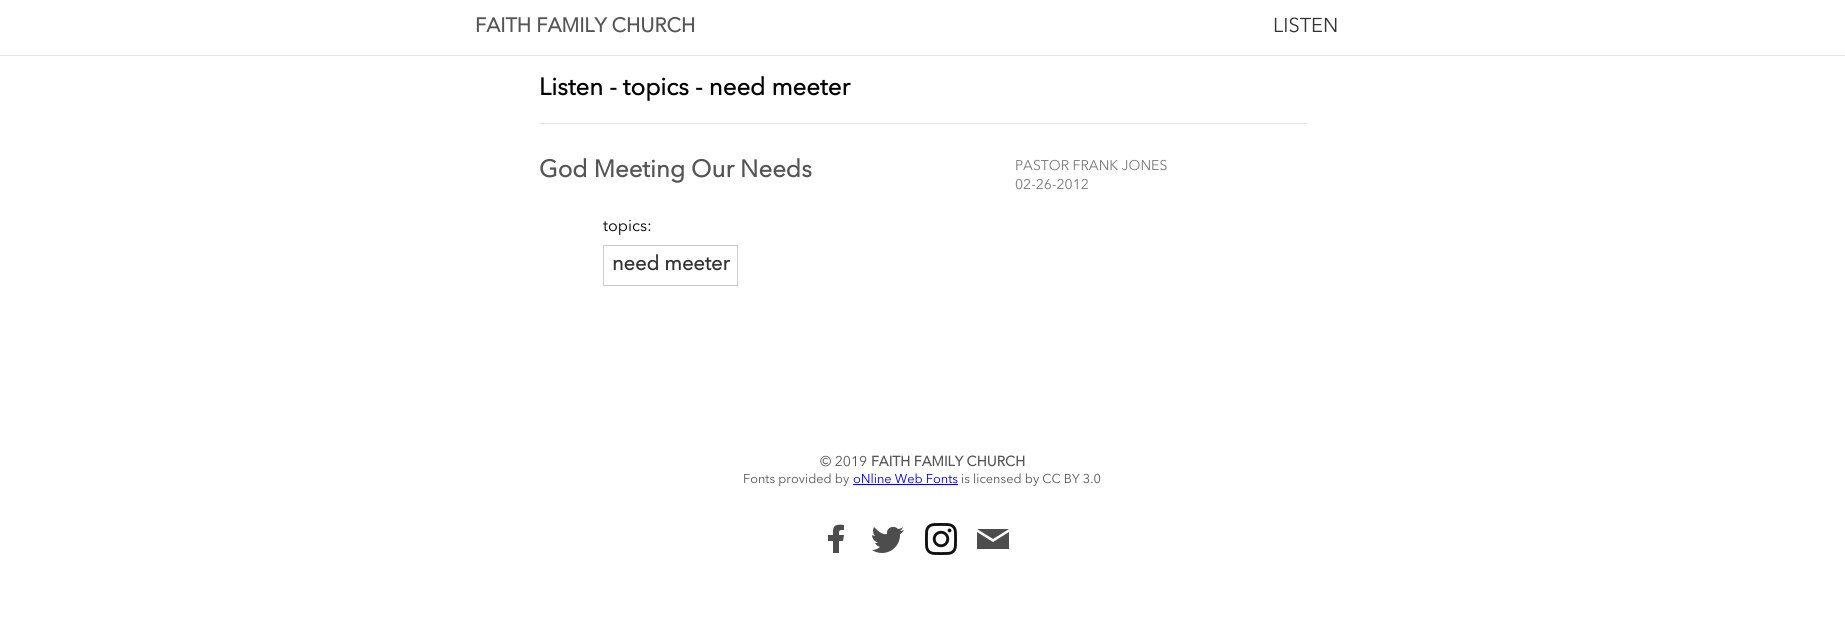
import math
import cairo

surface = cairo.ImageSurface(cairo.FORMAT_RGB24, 1845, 627)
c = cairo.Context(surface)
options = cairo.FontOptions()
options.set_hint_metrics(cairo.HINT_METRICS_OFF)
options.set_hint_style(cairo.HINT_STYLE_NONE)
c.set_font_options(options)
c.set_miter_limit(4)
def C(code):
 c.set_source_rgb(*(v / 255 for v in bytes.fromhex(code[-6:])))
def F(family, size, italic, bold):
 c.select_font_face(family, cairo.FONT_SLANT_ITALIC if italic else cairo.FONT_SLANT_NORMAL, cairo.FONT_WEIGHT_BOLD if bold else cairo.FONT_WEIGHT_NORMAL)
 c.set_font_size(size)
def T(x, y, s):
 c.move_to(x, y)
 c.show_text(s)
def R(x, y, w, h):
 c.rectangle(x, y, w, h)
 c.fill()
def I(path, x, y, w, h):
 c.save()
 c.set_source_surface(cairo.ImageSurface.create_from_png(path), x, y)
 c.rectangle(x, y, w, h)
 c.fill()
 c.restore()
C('ffffff')
c.paint()
C('e6e6e6')
R(0,55,1845,1)
F('Avenir Next',20,0,1)
C('555555')
T(475,32,'FAITH FAMILY CHURCH')
F('Avenir Next',20,0,0)
C('333333')
T(1273,32,'LISTEN')
F('Avenir Next',24,0,1)
C('000000')
T(539,95,'Listen - topics - need meeter')
C('e6e6e6')
R(539,123,768,1)
C('555555')
T(539,177,'God Meeting Our Needs')
F('Avenir Next',14,0,0)
C('777777')
T(1015,170,'PASTOR FRANK JONES')
T(1015,189,'02-26-2012')
F('Avenir Next',16,0,0)
C('000000')
T(603,231,'topics:')
c.rectangle(603.5,245.5,134,40)
C('cccccc')
c.set_line_width(1)
c.stroke()
F('Avenir Next',20,0,1)
C('333333')
T(612,270,'need meeter')
F('Avenir Next',14,0,0)
C('555555')
T(820,466,'© 2019')
F('Avenir Next',14,0,1)
T(871,466,'FAITH FAMILY CHURCH')
F('Avenir Next',12.75,0,0)
T(743,483,'Fonts provided by')
C('0000ee')
R(853,484,105,1)
T(853,483,'oNline Web Fonts')
C('555555')
T(961,483,'is licensed by CC BY 3.0')
I('1.png',828,524,16,29)
I('2.png',872,526,32,27)
I('3.png',925,523,32,32)
C('4d4d4d')
c.new_path()
c.move_to(977,529)
c.line_to(993,539)
c.line_to(1009,529)
c.close_path()
c.move_to(977,532)
c.line_to(977,549)
c.line_to(1009,549)
c.line_to(1009,532)
c.line_to(993,542)
c.close_path()
c.fill()
surface.write_to_png('o.png')
